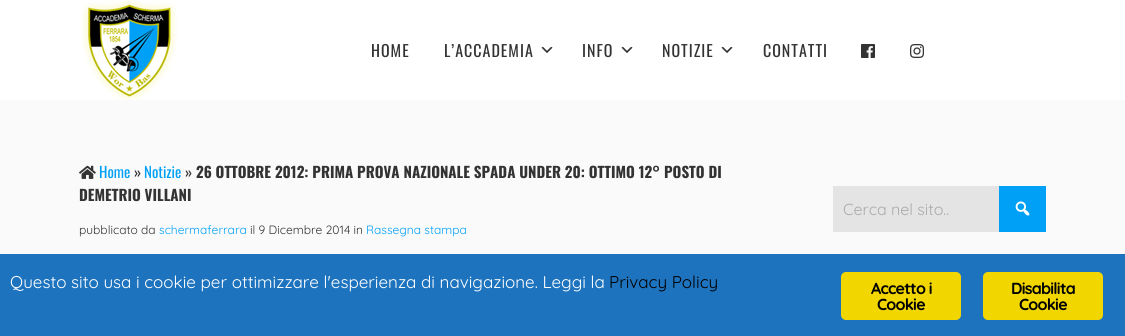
import math
import cairo

surface = cairo.ImageSurface(cairo.FORMAT_RGB24, 1125, 336)
c = cairo.Context(surface)
options = cairo.FontOptions()
options.set_hint_metrics(cairo.HINT_METRICS_OFF)
options.set_hint_style(cairo.HINT_STYLE_NONE)
c.set_font_options(options)
c.set_miter_limit(4)
def C(code):
 c.set_source_rgb(*(v / 255 for v in bytes.fromhex(code[-6:])))
def F(family, size, italic, bold):
 c.select_font_face(family, cairo.FONT_SLANT_ITALIC if italic else cairo.FONT_SLANT_NORMAL, cairo.FONT_WEIGHT_BOLD if bold else cairo.FONT_WEIGHT_NORMAL)
 c.set_font_size(size)
def T(x, y, s):
 c.move_to(x, y)
 c.show_text(s)
def L(x, y, s, letter, word):
 c.move_to(x, y)
 for ch in s:
  c.show_text(ch)
  c.rel_move_to(letter + word * (ch == ' '), 0)
def R(x, y, w, h):
 c.rectangle(x, y, w, h)
 c.fill()
def Q(x, y, w, h, r):
 c.new_sub_path()
 for i, (u, v) in enumerate([(x + w - r, y + h - r), (x + r, y + h - r), (x + r, y + r), (x + w - r, y + r)]):
  c.arc(u, v, r, i * math.pi / 2, (i + 1) * math.pi / 2)
 c.close_path()
def I(path, x, y, w, h):
 c.save()
 c.set_source_surface(cairo.ImageSurface.create_from_png(path), x, y)
 c.rectangle(x, y, w, h)
 c.fill()
 c.restore()
C('fafafa')
c.paint()
C('ffffff')
R(0,0,1125,100)
I('1.png',81,0,96,100)
F('Oswald',16,0,0)
C('333333')
L(371,57,'HOME',1,0)
L(444,57,'L’ACCADEMIA',1,0)
I('2.png',541,46,12,7)
L(582,57,'INFO',1,0)
I('2.png',621,46,12,7)
L(662,57,'NOTIZIE',1,0)
I('2.png',721,46,12,7)
L(763,57,'CONTATTI',1,0)
I('3.png',861,44,14,14)
I('4.png',910,44,14,14)
I('5.png',79,165,17,14)
F('Oswald',15,0,0)
C('00a0f6')
T(99,178,'Home')
C('333333')
T(134,178,'»')
C('00a0f6')
T(144,178,'Notizie')
C('333333')
T(185,178,'»')
F('Oswald',15,0,1)
T(196,178,'26 OTTOBRE 2012: PRIMA PROVA NAZIONALE SPADA UNDER 20: OTTIMO 12° POSTO DI')
T(79,201,'DEMETRIO VILLANI')
F('Quicksand',12,0,0)
T(79,234,'pubblicato da')
C('00a0f6')
T(159,234,'schermaferrara')
C('333333')
T(250,234,'il 9 Dicembre 2014 in')
C('00a0f6')
T(366,234,'Rassegna stampa')
C('e4e4e4')
R(833,186,166,46)
F('Quicksand',16,0,0)
C('aaaaaa')
T(843,215,'Cerca nel sito..')
C('00a0f6')
R(999,186,47,46)
I('6.png',1015,201,15,15)
C('1e73be')
R(0,254,1125,82)
F('Quicksand',17,0,0)
C('ffffff')
T(10,288,'Questo sito usa i cookie per ottimizzare l\'esperienza di navigazione. Leggi la')
C('000000')
T(609,288,'Privacy Policy')
C('f1d600')
Q(841,272,120,48,5)
c.fill()
F('Quicksand',16,0,1)
C('000000')
L(871,294,'Accetto i',-.75,0)
L(877,310,'Cookie',-.75,0)
C('f1d600')
Q(983,272,120,48,5)
c.fill()
C('000000')
L(1011,294,'Disabilita',-.75,0)
L(1019,310,'Cookie',-.75,0)
surface.write_to_png('o.png')
